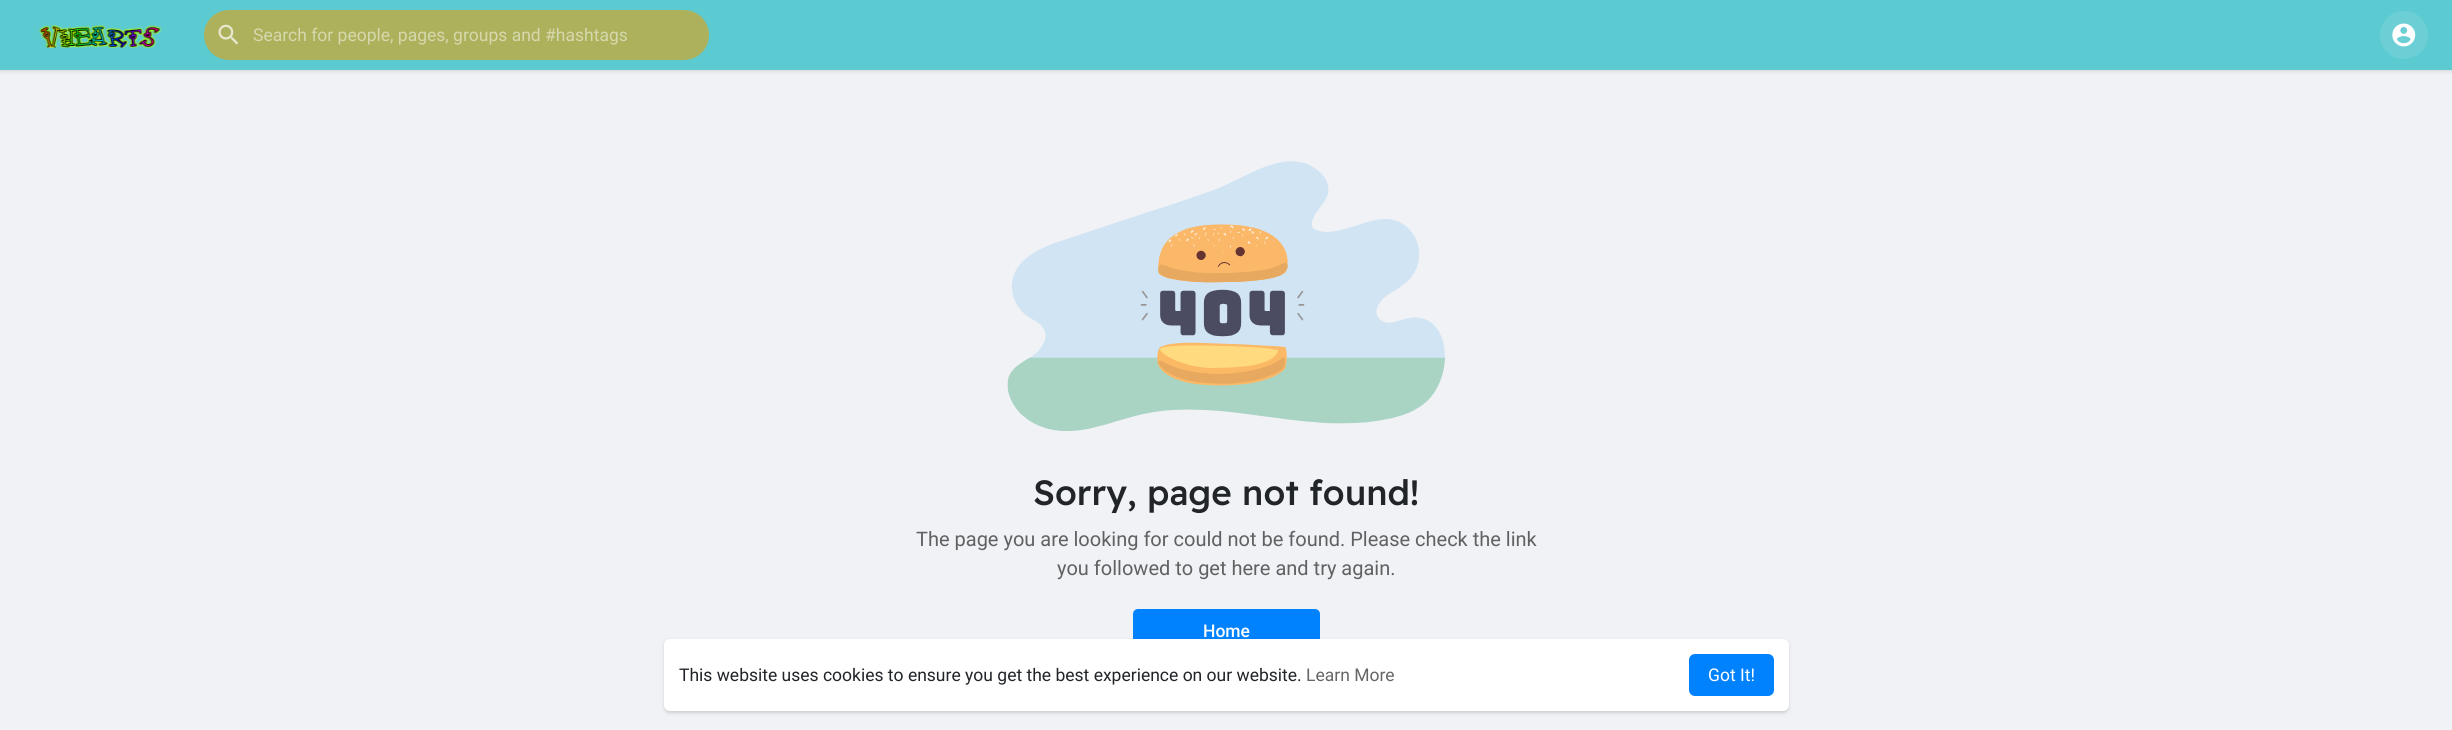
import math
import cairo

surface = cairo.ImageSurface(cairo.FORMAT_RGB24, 2452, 730)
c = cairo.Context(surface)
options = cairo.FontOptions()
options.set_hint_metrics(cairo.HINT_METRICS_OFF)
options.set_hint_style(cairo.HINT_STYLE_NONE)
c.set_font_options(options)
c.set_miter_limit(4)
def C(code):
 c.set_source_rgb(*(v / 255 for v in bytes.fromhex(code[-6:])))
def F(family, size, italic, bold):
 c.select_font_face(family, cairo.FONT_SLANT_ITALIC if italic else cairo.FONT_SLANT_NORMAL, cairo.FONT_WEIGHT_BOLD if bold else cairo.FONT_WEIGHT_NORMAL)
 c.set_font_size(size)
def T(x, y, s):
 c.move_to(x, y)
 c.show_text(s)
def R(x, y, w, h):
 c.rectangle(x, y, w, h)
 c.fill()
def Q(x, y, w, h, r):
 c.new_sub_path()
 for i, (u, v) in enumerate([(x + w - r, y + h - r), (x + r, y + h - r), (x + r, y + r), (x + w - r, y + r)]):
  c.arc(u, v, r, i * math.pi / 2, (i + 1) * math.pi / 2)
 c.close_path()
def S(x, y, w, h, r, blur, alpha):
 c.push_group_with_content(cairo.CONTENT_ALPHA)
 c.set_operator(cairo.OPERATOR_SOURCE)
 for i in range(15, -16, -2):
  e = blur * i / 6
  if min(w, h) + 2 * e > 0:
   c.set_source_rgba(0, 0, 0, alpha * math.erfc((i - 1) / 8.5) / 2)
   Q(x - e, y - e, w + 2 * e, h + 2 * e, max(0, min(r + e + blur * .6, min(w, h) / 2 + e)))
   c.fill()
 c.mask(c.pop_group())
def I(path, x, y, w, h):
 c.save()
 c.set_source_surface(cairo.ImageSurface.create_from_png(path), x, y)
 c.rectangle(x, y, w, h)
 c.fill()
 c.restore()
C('f0f2f5')
c.paint()
C('5ccad1')
R(0,0,2452,70)
I('1.png',38,25,124,23)
C('adb15b')
Q(204,10,505,50,25)
c.fill()
I('2.png',218,24,20,21)
F('Roboto',17.5,0,0)
C('d6d8ad')
T(253,41,'Search for people, pages, groups and #hashtags')
I('3.png',0,69,2452,5)
C('6ccfd6')
c.arc(2404,35,24,0,2 * math.pi)
c.fill()
I('4.png',2392,23,24,24)
I('5.png',1007,161,438,270)
F('Readex Pro Medium',35,0,0)
C('212529')
T(1033,505,'Sorry, page not found!')
F('Roboto',20,0,0)
C('606162')
T(916,546,'The page you are looking for could not be found. Please check the link')
T(1057,575,'you followed to get here and try again.')
C('0082ff')
Q(1133,609,187,45,5)
c.fill()
F('Roboto Medium',17.5,0,0)
C('ffffff')
T(1203,637,'Home')
C('000000')
S(664,640,1125,73,6,1,.06)
S(664,640,1125,73,6,2,.1)
C('ffffff')
Q(664,639,1125,72,6)
c.fill()
F('Roboto',17.5,0,0)
C('212529')
T(679,681,'This website uses cookies to ensure you get the best experience on our website.')
C('666666')
T(1306,681,'Learn More')
C('0082ff')
Q(1689,654,85,42,6)
c.fill()
C('ffffff')
T(1708,681,'Got It!')
surface.write_to_png('o.png')
